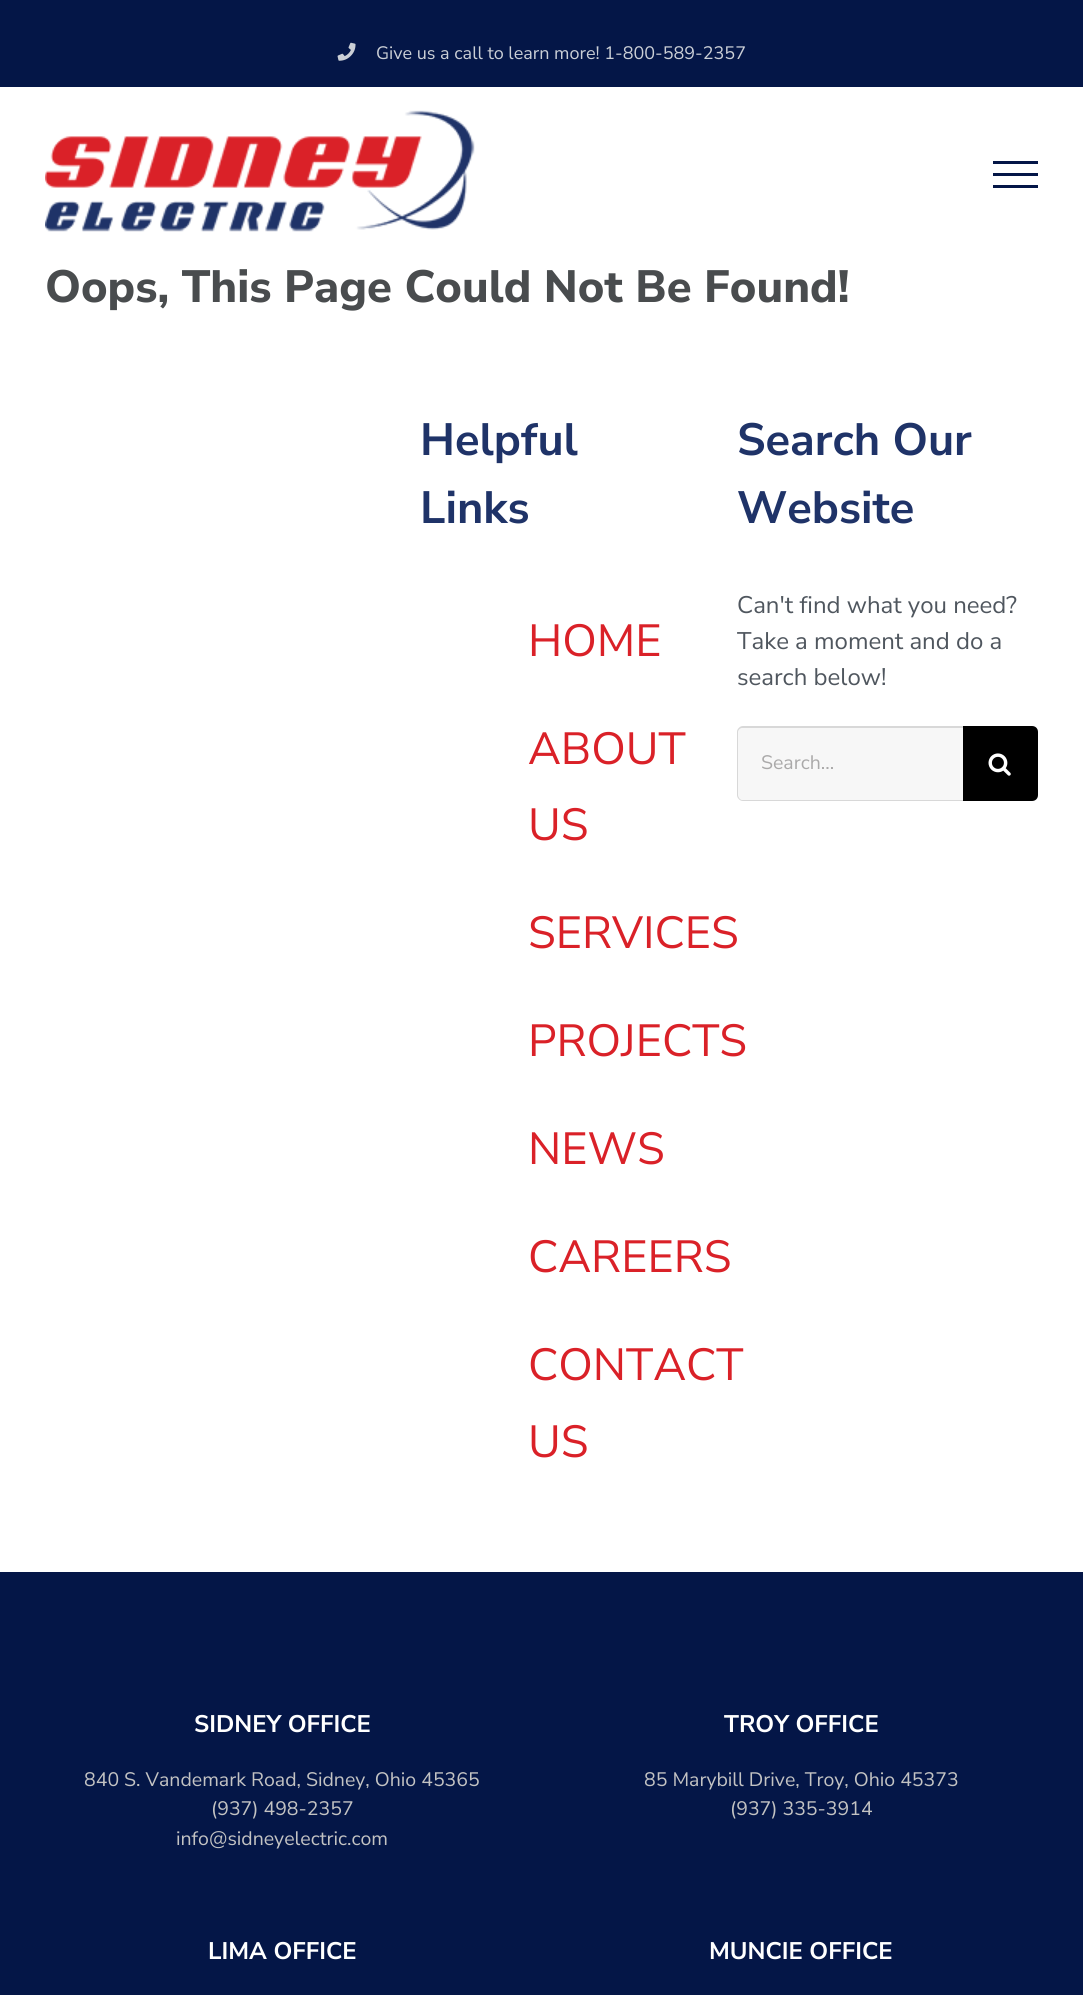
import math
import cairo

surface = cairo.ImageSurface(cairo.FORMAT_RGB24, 1083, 1995)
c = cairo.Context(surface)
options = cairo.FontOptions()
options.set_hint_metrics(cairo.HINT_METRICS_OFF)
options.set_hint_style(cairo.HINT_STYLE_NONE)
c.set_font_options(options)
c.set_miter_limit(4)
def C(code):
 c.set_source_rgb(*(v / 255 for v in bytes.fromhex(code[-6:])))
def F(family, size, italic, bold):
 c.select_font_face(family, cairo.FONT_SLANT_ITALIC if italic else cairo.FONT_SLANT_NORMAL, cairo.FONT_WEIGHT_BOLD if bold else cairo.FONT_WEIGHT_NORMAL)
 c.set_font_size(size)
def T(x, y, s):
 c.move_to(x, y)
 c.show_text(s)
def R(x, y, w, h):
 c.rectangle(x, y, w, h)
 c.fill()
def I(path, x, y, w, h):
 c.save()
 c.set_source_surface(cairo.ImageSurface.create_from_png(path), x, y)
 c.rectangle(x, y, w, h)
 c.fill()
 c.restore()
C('ffffff')
c.paint()
C('041647')
R(0,0,1083,87)
I('1.png',337,42,19,19)
F('Nunito Sans',18,0,0)
C('cbcfd6')
T(376,59,'Give us a call to learn more! 1-800-589-2357')
I('2.png',45,110,430,122)
C('041647')
R(993,161,45,3)
R(993,173,45,3)
R(993,185,45,3)
F('Nunito Sans ExtraBold',45.2,0,0)
C('494c4e')
T(45,302,'Oops, This Page Could Not Be Found!')
F('Nunito Sans',45.2,0,1)
C('1f3368')
T(420,455,'Helpful')
T(420,523,'Links')
F('Nunito Sans',45,0,0)
C('da2128')
T(528,656,'HOME')
T(528,764,'ABOUT')
T(528,840,'US')
T(528,948,'SERVICES')
T(528,1056,'PROJECTS')
T(528,1164,'NEWS')
T(528,1272,'CAREERS')
T(528,1380,'CONTACT')
T(528,1457,'US')
F('Nunito Sans',45.2,0,1)
C('1f3368')
T(737,455,'Search Our')
T(737,523,'Website')
F('Nunito Sans',24,0,0)
C('4f565e')
T(737,613,'Can\'t find what you need?')
T(737,649,'Take a moment and do a')
T(737,685,'search below!')
C('f7f7f7')
c.new_path()
c.move_to(743,726)
c.line_to(963,726)
c.line_to(963,801)
c.line_to(743,801)
c.curve_to(739.5,801,737,798.5,737,795)
c.line_to(737,732)
c.curve_to(737,728.5,739.5,726,743,726)
c.close_path()
c.fill()
C('d8d8d8')
c.new_path()
c.move_to(742,728)
c.line_to(963,728)
c.line_to(963,726)
c.line_to(743,726)
c.curve_to(740,726,737,729,737,732)
c.line_to(737,795)
c.curve_to(737,798,740,801,743,801)
c.line_to(963,801)
c.line_to(963,800)
c.line_to(742,800)
c.curve_to(740,800,738,797,738,795)
c.line_to(738,732)
c.curve_to(738,730,740,728,742,728)
c.close_path()
c.fill()
F('Nunito Sans',19.5,0,0)
C('aaa9a9')
T(761,769,'Search...')
C('000000')
c.new_path()
c.move_to(963,726)
c.line_to(1032,726)
c.curve_to(1035.5,726,1038,728.5,1038,732)
c.line_to(1038,795)
c.curve_to(1038,798.5,1035.5,801,1032,801)
c.line_to(963,801)
c.close_path()
c.fill()
I('3.png',988,753,23,23)
C('041647')
R(0,1572,1083,423)
F('Nunito Sans',24,0,1)
C('ffffff')
T(194,1732,'SIDNEY OFFICE')
F('Nunito Sans',19.5,0,0)
C('c3c3c3')
T(84,1786,'840 S. Vandemark Road, Sidney, Ohio 45365')
T(211,1815,'(937) 498-2357')
T(176,1845,'info@sidneyelectric.com')
F('Nunito Sans',24,0,1)
C('ffffff')
T(724,1732,'TROY OFFICE')
F('Nunito Sans',19.5,0,0)
C('c3c3c3')
T(644,1786,'85 Marybill Drive, Troy, Ohio 45373')
T(730,1815,'(937) 335-3914')
F('Nunito Sans',24,0,1)
C('ffffff')
T(208,1959,'LIMA OFFICE')
T(709,1959,'MUNCIE OFFICE')
surface.write_to_png('o.png')
